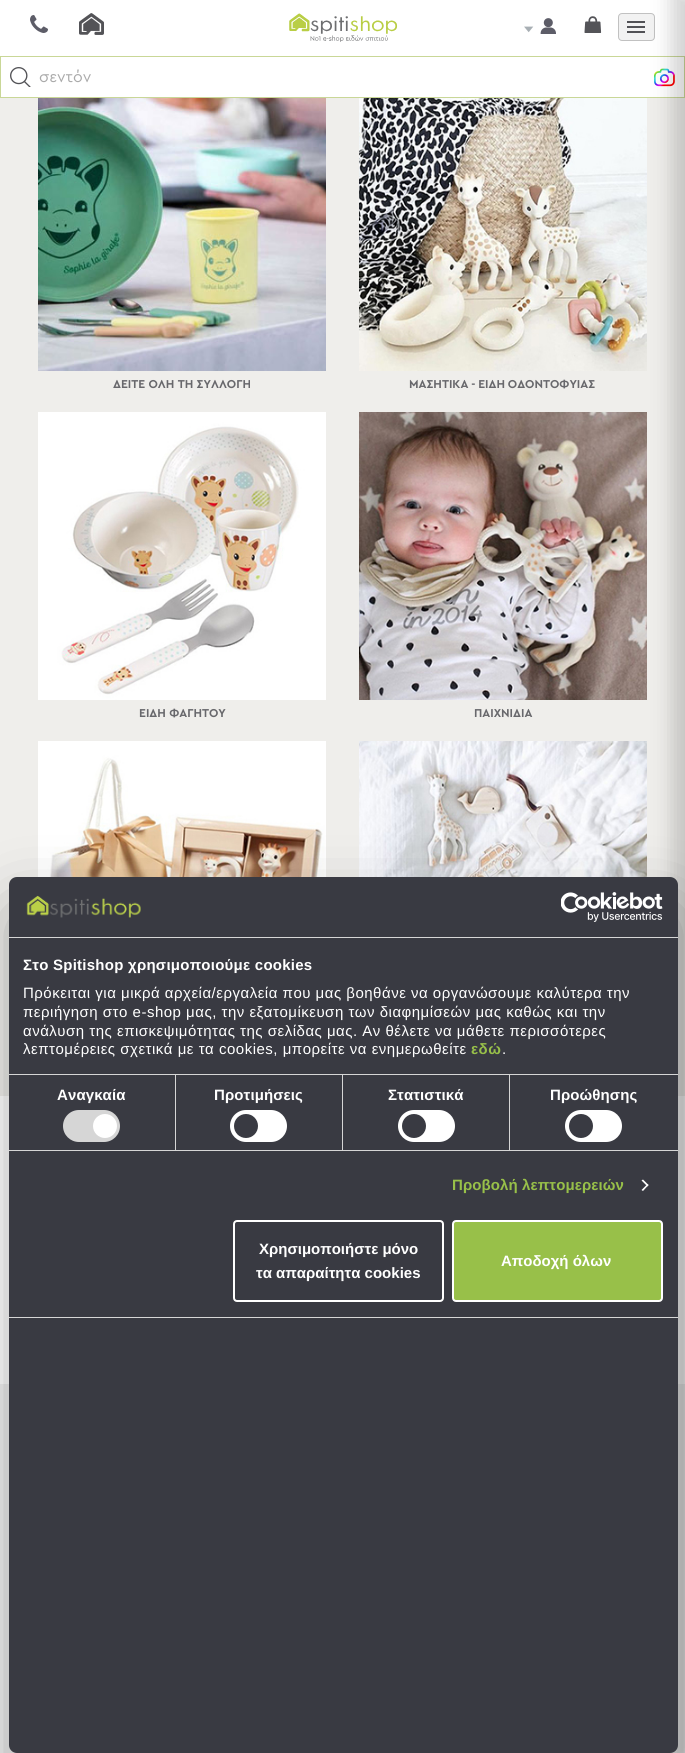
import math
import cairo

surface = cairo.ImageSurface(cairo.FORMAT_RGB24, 685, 1753)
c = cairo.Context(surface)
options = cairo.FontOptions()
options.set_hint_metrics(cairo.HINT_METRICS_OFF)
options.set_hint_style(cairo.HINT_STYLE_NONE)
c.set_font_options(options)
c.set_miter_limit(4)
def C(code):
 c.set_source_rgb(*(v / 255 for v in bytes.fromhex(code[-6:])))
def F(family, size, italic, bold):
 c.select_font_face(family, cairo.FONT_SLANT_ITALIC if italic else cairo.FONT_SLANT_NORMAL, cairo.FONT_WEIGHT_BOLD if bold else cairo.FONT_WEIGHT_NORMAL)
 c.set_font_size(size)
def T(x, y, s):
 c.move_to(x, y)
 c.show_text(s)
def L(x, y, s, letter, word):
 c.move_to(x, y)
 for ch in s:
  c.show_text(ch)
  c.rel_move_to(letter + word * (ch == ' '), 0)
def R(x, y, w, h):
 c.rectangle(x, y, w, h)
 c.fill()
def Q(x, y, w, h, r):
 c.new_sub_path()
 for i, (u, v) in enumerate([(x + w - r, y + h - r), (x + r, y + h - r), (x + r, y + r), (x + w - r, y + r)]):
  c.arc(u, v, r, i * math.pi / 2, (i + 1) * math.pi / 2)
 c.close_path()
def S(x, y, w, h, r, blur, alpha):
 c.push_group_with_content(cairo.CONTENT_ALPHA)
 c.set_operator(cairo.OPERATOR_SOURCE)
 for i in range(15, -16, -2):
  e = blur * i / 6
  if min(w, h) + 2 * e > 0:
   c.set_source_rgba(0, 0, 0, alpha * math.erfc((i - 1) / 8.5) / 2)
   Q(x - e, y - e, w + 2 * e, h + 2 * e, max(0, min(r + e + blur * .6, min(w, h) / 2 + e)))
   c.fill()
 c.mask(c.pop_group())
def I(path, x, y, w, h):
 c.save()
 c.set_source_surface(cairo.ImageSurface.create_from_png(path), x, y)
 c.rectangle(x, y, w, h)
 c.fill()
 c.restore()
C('f0f0f0')
c.paint()
C('ffffff')
R(0,0,685,97)
I('1.png',30,15,18,18)
I('2.png',79,13,25,22)
I('3.png',289,13,109,29)
I('4.png',524,18,32,16)
I('5.png',584,16,18,17)
C('f2f2f2')
Q(618.5,13.5,36,27,3.5)
c.fill_preserve()
C('c1c1c1')
c.set_line_width(1)
c.stroke()
C('525256')
R(627,21,18,2)
R(627,26,18,2)
R(627,31,18,2)
c.rectangle(.5,56.5,684,41)
C('c9d797')
c.stroke()
I('7.png',654,68,21,19)
C('ffffff')
R(0,1096,685,288)
C('efeeeb')
R(0,98,685,998)
I('9.png',359,98,288,273)
I('11.png',359,412,288,288)
I('13.png',359,741,288,136)
C('000000')
S(672,-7,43,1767,0,10,.18)
I('6.png',10,67,21,20)
F('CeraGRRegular',16,0,0)
C('aaaaaa')
T(39,82,'σεντόν')
I('8.png',38,98,288,273)
F('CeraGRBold',12,0,1)
C('68686c')
T(113,388,'ΔΕΙΤΕ ΟΛΗ ΤΗ ΣΥΛΛΟΓΗ')
L(409,388,'ΜΑΣΗΤΙΚΑ - ΕΙΔΗ ΟΔΟΝΤΟΦΥΙΑΣ',0,-.5)
I('10.png',38,412,288,288)
T(139,717,'ΕΙΔΗ ΦΑΓΗΤΟΥ')
T(474,717,'ΠΑΙΧΝΙΔΙΑ')
I('12.png',38,741,288,136)
C('000000')
S(9,909,669,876,8,34,.3)
C('393a42')
Q(9,877,669,876,8)
c.fill()
C('d6d6d6')
R(9,937,669,1)
I('14.png',26,895,115,23)
I('15.png',561,892,102,30)
R(9,1074,669,1)
F('Liberation Sans',15,0,1)
C('ffffff')
L(23,970,'Στο Spitishop χρησιμοποιούμε cookies',.25,0)
F('Liberation Sans',15,0,0)
L(23,998,'Πρόκειται για μικρά αρχεία/εργαλεία που μας βοηθάνε να οργανώσουμε καλύτερα την',.5,0)
L(23,1017,'περιήγηση στο e-shop μας, την εξατομίκευση των διαφημίσεών μας καθώς και την',.5,0)
L(23,1036,'ανάλυση της επισκεψιμότητας της σελίδας μας. Αν θέλετε να μάθετε περισσότερες',.5,0)
L(23,1054,'λεπτομέρειες σχετικά με τα cookies, μπορείτε να ενημερωθείτε',.5,0)
F('Liberation Sans',15,0,1)
C('98c049')
L(471,1054,'εδώ',.5,0)
F('Liberation Sans',15,0,0)
C('ffffff')
L(502,1054,'.',.5,0)
C('d6d6d6')
R(9,1150,669,1)
R(175,1075,1,75)
F('Liberation Sans',15,0,1)
C('ffffff')
L(57,1100,'Αναγκαία',.1,0)
C('d6d6d6')
Q(63,1110,57,32,16)
c.fill()
C('ffffff')
c.arc(105,1126,12,0,2 * math.pi)
c.fill()
C('d6d6d6')
R(342,1075,1,75)
C('ffffff')
L(214,1100,'Προτιμήσεις',.1,0)
Q(230,1110,57,32,16)
c.fill()
C('393a42')
c.arc(246,1126,12,0,2 * math.pi)
c.fill()
C('d6d6d6')
R(509,1075,1,75)
C('ffffff')
L(388,1100,'Στατιστικά',.1,0)
Q(398,1110,57,32,16)
c.fill()
C('393a42')
c.arc(414,1126,12,0,2 * math.pi)
c.fill()
C('ffffff')
L(550,1100,'Προώθησης',.1,0)
Q(565,1110,57,32,16)
c.fill()
C('393a42')
c.arc(581,1126,12,0,2 * math.pi)
c.fill()
C('98c049')
L(452,1190,'Προβολή λεπτομερειών',.1,0)
C('ffffff')
c.new_path()
c.move_to(643,1179.5)
c.line_to(648.5,1185)
c.line_to(647.5,1186.5)
c.line_to(641.5,1180.5)
c.close_path()
c.fill()
c.new_path()
c.move_to(647.5,1184)
c.line_to(648.5,1185)
c.line_to(643,1191)
c.line_to(641.5,1190)
c.close_path()
c.fill()
C('d6d6d6')
R(9,1317,669,1)
Q(234,1221,209,80,3)
C('ffffff')
c.set_line_width(2)
c.stroke()
T(259,1254,'Χρησιμοποιήστε μόνο')
T(256,1278,'τα απαραίτητα cookies')
C('98c049')
Q(453,1221,209,80,3)
c.fill_preserve()
C('ffffff')
c.stroke()
T(501,1266,'Αποδοχή όλων')
surface.write_to_png('o.png')
